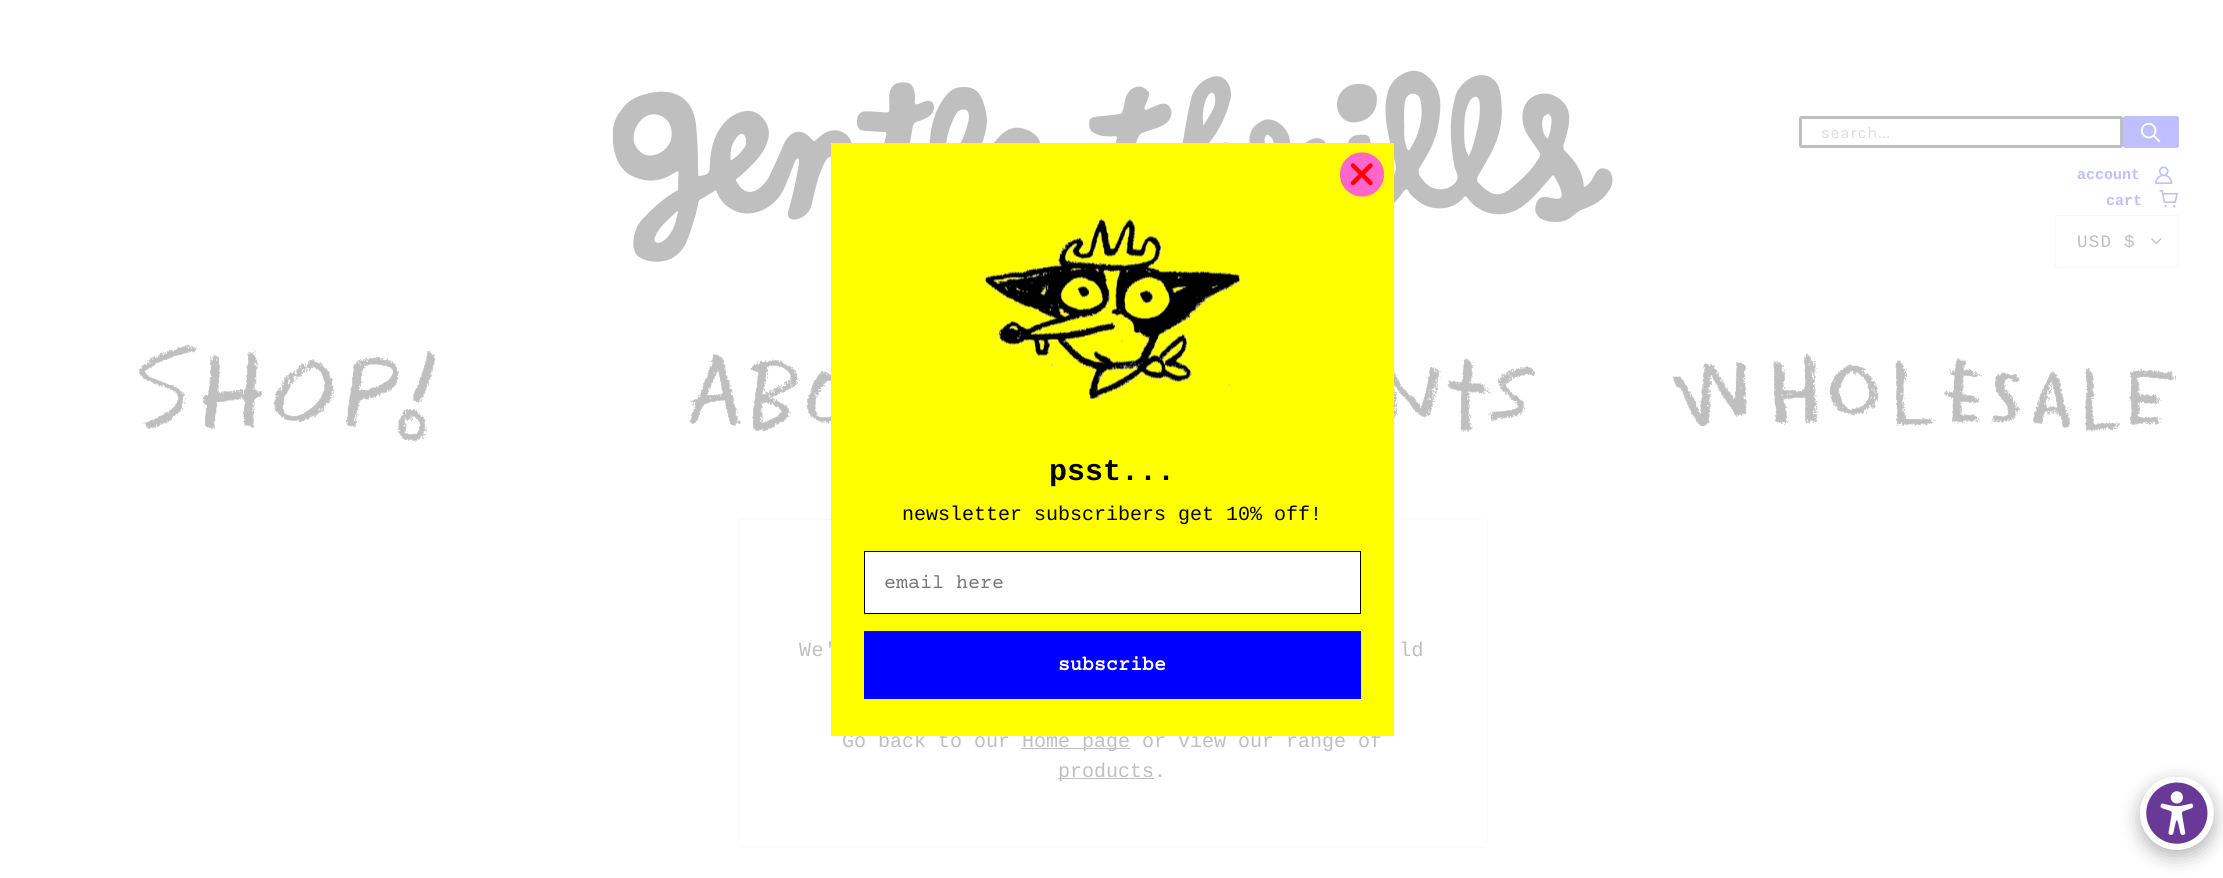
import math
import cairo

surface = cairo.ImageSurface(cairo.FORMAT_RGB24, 2223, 878)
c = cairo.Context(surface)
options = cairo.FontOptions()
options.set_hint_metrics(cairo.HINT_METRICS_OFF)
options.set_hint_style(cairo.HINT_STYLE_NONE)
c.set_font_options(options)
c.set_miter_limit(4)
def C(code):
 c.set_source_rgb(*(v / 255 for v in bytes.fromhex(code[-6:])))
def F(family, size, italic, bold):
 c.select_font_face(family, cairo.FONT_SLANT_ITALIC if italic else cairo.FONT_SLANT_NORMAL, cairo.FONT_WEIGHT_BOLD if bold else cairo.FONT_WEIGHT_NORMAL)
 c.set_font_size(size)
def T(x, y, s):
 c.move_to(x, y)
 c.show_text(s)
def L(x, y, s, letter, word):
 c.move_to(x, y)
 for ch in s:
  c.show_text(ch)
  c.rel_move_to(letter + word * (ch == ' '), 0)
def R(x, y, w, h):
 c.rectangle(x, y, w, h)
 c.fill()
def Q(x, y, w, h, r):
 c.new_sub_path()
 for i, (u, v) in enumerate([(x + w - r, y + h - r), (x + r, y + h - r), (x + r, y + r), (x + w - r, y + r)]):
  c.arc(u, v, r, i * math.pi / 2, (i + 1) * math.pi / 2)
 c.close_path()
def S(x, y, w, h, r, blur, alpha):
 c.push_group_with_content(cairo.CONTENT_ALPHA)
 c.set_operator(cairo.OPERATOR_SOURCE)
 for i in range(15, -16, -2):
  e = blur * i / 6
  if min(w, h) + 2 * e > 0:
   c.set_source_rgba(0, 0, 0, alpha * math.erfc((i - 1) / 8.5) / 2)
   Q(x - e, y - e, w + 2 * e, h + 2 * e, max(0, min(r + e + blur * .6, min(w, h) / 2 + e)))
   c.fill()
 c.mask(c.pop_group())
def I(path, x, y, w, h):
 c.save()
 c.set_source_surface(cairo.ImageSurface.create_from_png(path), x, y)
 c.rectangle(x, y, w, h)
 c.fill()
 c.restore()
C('ffffff')
c.paint()
I('1.png',613,70,1000,192)
Q(1800.5,117.5,321,29,1)
C('bfbfbf')
c.set_line_width(3)
c.stroke()
F('Karla',16.25,0,0)
C('dddddd')
L(1821,138,'search...',1.25,0)
C('bfbfff')
Q(2123,116,56,32,2.5)
c.fill()
I('2.png',2141,123,20,20)
F('Liberation Mono',15,0,1)
T(2077,179,'account')
I('3.png',2155,166,18,18)
T(2106,205,'cart')
I('4.png',2159,190,19,18)
Q(2055.5,215.5,123,52,2)
C('f7f7f7')
c.set_line_width(1)
c.stroke()
F('Liberation Mono',17.5,0,0)
C('bfbfbf')
L(2077,247,'USD $',1.25,0)
I('5.png',2151,238,11,7)
I('6.png',138,344,298,98)
I('7.png',689,354,142,78)
I('8.png',1394,357,141,75)
I('9.png',1673,353,503,79)
Q(738.5,519.5,749,328,3.5)
C('fafafa')
c.stroke()
F('Liberation Mono',20,0,0)
C('bfbfbf')
L(799,656,'We\'',.5,0)
L(1399,656,'ld',.5,0)
T(842,747,'Go back to our')
R(1021,748,109,1)
T(1022,747,'Home page or view our range of')
R(1058,778,96,1)
T(1058,777,'products.')
C('ffff00')
R(831,143,563,593)
C('ff66cc')
c.new_path()
c.arc(1362,174.5,21,0,2 * math.pi)
c.fill_preserve()
c.set_line_width(2.2)
c.stroke()
c.new_path()
c.move_to(1353,165.5)
c.line_to(1370.5,183)
c.move_to(1353,183)
c.line_to(1370.5,165.5)
c.close_path()
C('ff0000')
c.set_line_width(4.4)
c.set_line_cap(cairo.LINE_CAP_ROUND)
c.set_line_join(cairo.LINE_JOIN_ROUND)
c.stroke()
I('10.png',984,218,256,182)
F('Liberation Mono',30,0,1)
C('000000')
T(1049,480,'psst...')
F('Liberation Mono',20,0,0)
T(902,520,'newsletter subscribers get 10% off!')
C('ffffff')
c.rectangle(864.5,551.5,496,62)
c.fill_preserve()
C('000000')
c.set_line_width(1)
c.set_line_cap(cairo.LINE_CAP_BUTT)
c.set_line_join(cairo.LINE_JOIN_MITER)
c.stroke()
F('Courier Prime',20,0,0)
C('767676')
T(884,588,'email here')
C('0000ff')
R(864,631,497,68)
F('Courier Prime',20,0,1)
C('ffffff')
T(1058,670,'subscribe')
C('000000')
S(2140,783,74,73,36.5,9.5,.3)
I('11.png',2140,777,74,73)
surface.write_to_png('o.png')
